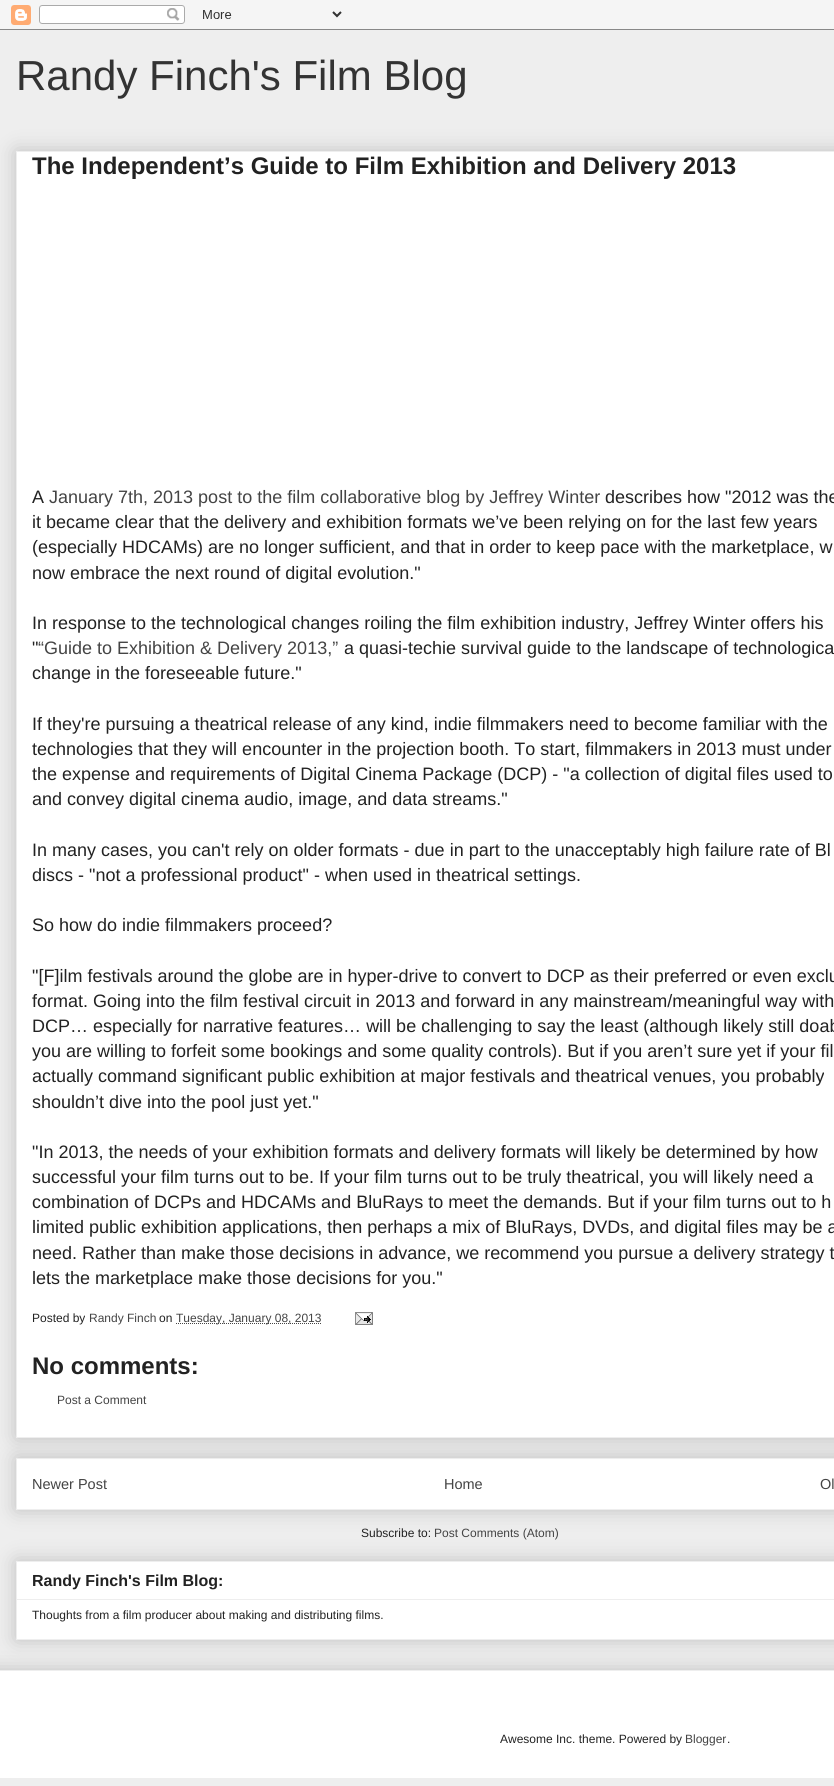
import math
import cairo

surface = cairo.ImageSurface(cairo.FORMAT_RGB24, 834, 1786)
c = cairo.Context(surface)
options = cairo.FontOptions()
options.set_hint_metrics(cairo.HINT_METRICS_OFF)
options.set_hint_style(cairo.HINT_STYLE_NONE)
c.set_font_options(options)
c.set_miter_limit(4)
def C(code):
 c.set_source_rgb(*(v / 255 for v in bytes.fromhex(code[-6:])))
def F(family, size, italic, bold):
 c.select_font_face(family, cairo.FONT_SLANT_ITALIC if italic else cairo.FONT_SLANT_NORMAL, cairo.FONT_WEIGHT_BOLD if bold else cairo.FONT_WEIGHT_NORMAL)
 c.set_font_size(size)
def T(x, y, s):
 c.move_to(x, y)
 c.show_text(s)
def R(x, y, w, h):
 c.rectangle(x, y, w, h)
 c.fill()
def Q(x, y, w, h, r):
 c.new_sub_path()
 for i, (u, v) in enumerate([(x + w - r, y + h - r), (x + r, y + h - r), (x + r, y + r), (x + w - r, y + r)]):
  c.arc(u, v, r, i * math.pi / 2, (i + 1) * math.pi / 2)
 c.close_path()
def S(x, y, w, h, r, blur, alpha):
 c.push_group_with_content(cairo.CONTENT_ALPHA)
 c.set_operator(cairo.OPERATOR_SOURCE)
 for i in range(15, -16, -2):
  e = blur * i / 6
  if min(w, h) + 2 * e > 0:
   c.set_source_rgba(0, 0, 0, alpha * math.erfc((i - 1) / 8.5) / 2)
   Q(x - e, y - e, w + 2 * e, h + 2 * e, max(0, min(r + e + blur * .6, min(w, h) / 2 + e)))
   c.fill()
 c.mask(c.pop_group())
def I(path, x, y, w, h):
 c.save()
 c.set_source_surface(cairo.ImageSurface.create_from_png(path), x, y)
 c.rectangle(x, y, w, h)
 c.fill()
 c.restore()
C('eeeeee')
c.paint()
I('1.png',0,0,834,30)
F('Liberation Sans',42,0,0)
C('333333')
T(16,90,'Randy Finch\'s Film Blog')
C('000000')
S(16,1458,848,52,0,10,.2)
C('ffffff')
c.rectangle(16.5,1458.5,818,51)
c.fill_preserve()
C('eeeeee')
c.set_line_width(1)
c.stroke()
C('000000')
S(16,151,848,1287,0,10,.2)
C('ffffff')
c.rectangle(16.5,151.5,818,1286)
c.fill_preserve()
C('eeeeee')
c.stroke()
F('Liberation Sans',24,0,1)
C('222222')
T(32,174,'The Independent’s Guide to Film Exhibition and Delivery 2013')
F('Liberation Sans',18,0,0)
T(32,503,'A')
C('444444')
T(49,503,'January 7th, 2013 post to the film collaborative blog by Jeffrey Winter')
C('222222')
T(605,503,'describes how "2012 was the')
T(32,528,'it became clear that the delivery and exhibition formats we’ve been relying on for the last few years')
T(32,553,'(especially HDCAMs) are no longer sufficient, and that in order to keep pace with the marketplace, w')
T(32,579,'now embrace the next round of digital evolution."')
T(32,629,'In response to the technological changes roiling the film exhibition industry, Jeffrey Winter offers his')
T(32,654,'"')
C('444444')
T(38,654,'“Guide to Exhibition & Delivery 2013,”')
C('222222')
T(344,654,'a quasi-techie survival guide to the landscape of technologica')
T(32,679,'change in the foreseeable future."')
T(32,730,'If they\'re pursuing a theatrical release of any kind, indie filmmakers need to become familiar with the')
T(32,755,'technologies that they will encounter in the projection booth. To start, filmmakers in 2013 must under')
T(32,780,'the expense and requirements of Digital Cinema Package (DCP) - "a collection of digital files used to')
T(32,805,'and convey digital cinema audio, image, and data streams."')
T(32,856,'In many cases, you can\'t rely on older formats - due in part to the unacceptably high failure rate of Bl')
T(32,881,'discs - "not a professional product" - when used in theatrical settings.')
T(32,931,'So how do indie filmmakers proceed?')
T(32,982,'"[F]ilm festivals around the globe are in hyper-drive to convert to DCP as their preferred or even exclu')
T(32,1007,'format. Going into the film festival circuit in 2013 and forward in any mainstream/meaningful way with')
T(32,1032,'DCP… especially for narrative features… will be challenging to say the least (although likely still doab')
T(32,1057,'you are willing to forfeit some bookings and some quality controls). But if you aren’t sure yet if your fil')
T(32,1082,'actually command significant public exhibition at major festivals and theatrical venues, you probably')
T(32,1108,'shouldn’t dive into the pool just yet."')
T(32,1158,'"In 2013, the needs of your exhibition formats and delivery formats will likely be determined by how')
T(32,1183,'successful your film turns out to be. If your film turns out to be truly theatrical, you will likely need a')
T(32,1208,'combination of DCPs and HDCAMs and BluRays to meet the demands. But if your film turns out to h')
T(32,1233,'limited public exhibition applications, then perhaps a mix of BluRays, DVDs, and digital files may be a')
T(32,1259,'need. Rather than make those decisions in advance, we recommend you pursue a delivery strategy t')
T(32,1284,'lets the marketplace make those decisions for you."')
F('Liberation Sans',12,0,0)
T(32,1322,'Posted by')
C('444444')
T(89,1322,'Randy Finch')
C('222222')
T(159,1322,'on')
c.new_path()
c.move_to(176,1323.5)
c.line_to(321.5,1323.5)
C('444444')
c.set_dash([1,1])
c.stroke()
T(176,1322,'Tuesday, January 08, 2013')
I('2.png',355,1312,18,13)
F('Liberation Sans',24,0,1)
C('222222')
T(32,1374,'No comments:')
F('Liberation Sans',12,0,0)
C('444444')
T(57,1404,'Post a Comment')
F('Liberation Sans',14.5,0,0)
T(32,1489,'Newer Post')
T(444,1489,'Home')
T(820,1489,'Ol')
F('Liberation Sans',12,0,0)
C('222222')
T(361,1537,'Subscribe to:')
C('444444')
T(434,1537,'Post Comments (Atom)')
C('000000')
S(16,1561,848,79,0,10,.2)
C('ffffff')
c.rectangle(16.5,1561.5,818,78)
c.fill_preserve()
C('eeeeee')
c.set_dash([])
c.stroke()
F('Liberation Sans',16,0,1)
C('222222')
T(32,1586,'Randy Finch\'s Film Blog:')
C('eeeeee')
R(17,1599,817,1)
F('Liberation Sans',12,0,0)
C('222222')
T(32,1619,'Thoughts from a film producer about making and distributing films.')
c.save()
c.rectangle(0,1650,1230,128)
c.clip()
C('000000')
S(-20,1670,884,108,0,10,.2)
c.restore()
C('ffffff')
R(0,1671,834,107)
C('eeeeee')
R(0,1670,834,1)
C('222222')
T(500,1743,'Awesome Inc. theme. Powered by')
C('444444')
T(685,1743,'Blogger')
C('222222')
T(727,1743,'.')
surface.write_to_png('o.png')
